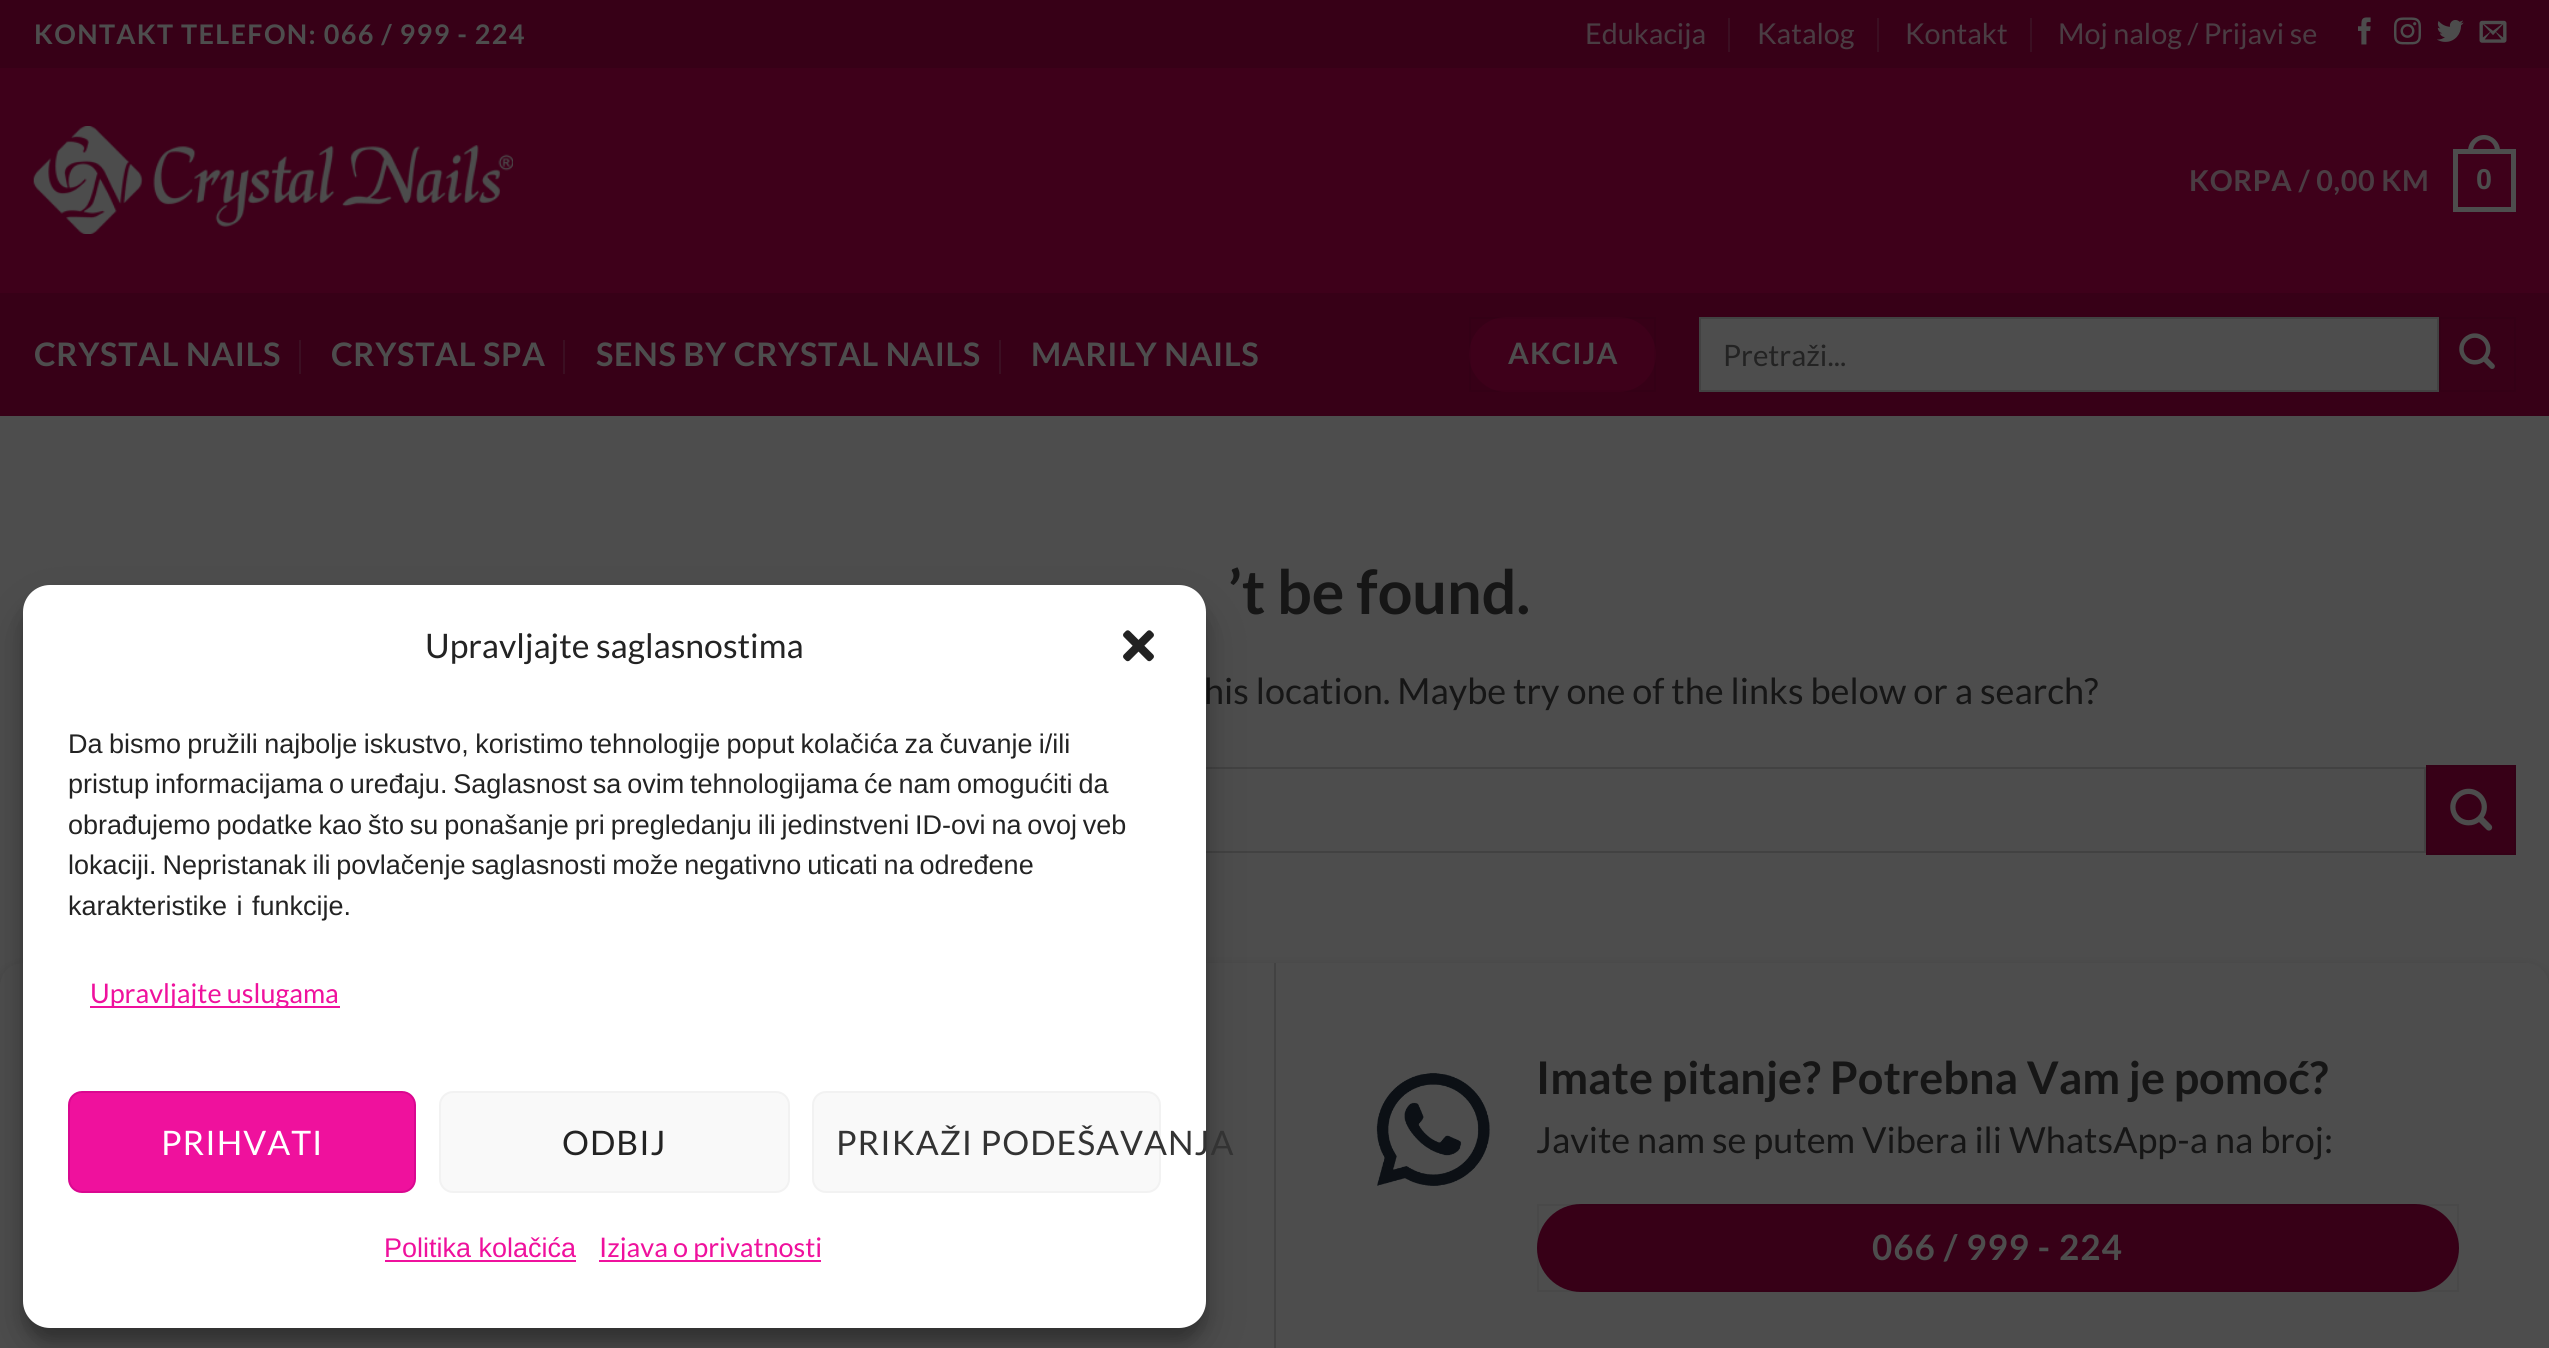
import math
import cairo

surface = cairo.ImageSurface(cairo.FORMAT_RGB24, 2549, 1348)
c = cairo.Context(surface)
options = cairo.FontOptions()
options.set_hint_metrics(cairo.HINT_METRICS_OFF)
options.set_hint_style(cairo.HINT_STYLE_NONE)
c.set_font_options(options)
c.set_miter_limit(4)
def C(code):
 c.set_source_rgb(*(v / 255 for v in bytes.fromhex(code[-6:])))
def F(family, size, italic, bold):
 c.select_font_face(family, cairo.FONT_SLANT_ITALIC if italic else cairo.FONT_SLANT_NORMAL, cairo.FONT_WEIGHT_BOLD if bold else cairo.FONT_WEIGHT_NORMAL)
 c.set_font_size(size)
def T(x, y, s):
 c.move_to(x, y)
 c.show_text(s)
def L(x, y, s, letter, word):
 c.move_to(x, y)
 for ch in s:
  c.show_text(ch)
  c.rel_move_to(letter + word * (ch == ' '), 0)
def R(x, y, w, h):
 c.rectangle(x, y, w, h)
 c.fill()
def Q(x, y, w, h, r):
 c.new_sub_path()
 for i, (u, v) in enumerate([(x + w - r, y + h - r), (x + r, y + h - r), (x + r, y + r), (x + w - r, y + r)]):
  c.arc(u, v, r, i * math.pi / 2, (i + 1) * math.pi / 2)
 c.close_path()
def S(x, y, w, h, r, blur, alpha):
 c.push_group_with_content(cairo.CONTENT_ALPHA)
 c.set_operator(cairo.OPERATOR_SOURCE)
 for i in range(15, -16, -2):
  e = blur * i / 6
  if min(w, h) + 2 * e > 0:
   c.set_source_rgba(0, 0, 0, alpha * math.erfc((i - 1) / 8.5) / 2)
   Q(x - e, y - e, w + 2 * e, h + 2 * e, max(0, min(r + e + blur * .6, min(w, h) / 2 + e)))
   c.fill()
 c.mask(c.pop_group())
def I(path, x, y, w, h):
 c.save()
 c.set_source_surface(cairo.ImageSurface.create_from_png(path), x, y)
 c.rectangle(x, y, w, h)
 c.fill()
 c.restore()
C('4d4d4d')
c.paint()
C('370017')
R(0,0,2549,68)
F('Lato',27,0,1)
C('4d4d4d')
L(34,44,'KONTAKT TELEFON: 066 / 999 - 224',1.35,0)
F('Lato',28.75,0,0)
C('4a3d43')
T(1585,44,'Edukacija')
C('3b0f22')
R(1728,18,2,34)
C('4a3d43')
T(1757,44,'Katalog')
C('3b0f22')
R(1877,18,2,34)
C('4a3d43')
T(1905,44,'Kontakt')
C('3b0f22')
R(2030,18,2,34)
C('4a3d43')
T(2058,44,'Moj nalog / Prijavi se')
I('1.png',2358,17,13,28)
I('2.png',2394,17,27,28)
I('3.png',2437,20,27,22)
I('4.png',2479,20,28,23)
C('3e001a')
R(0,68,2549,225)
I('5.png',33,126,480,108)
F('Lato',28.75,0,1)
C('4a3d43')
L(2189,191,'KORPA / 0,00 KM',.6,0)
c.rectangle(2455.5,151.5,58,58)
C('4d4d4d')
c.set_line_width(5)
c.stroke()
c.set_fill_rule(cairo.FILL_RULE_EVEN_ODD)
c.new_path()
c.move_to(2484,135)
c.curve_to(2492.5,135,2500,142,2500,151)
c.line_to(2500,153)
c.line_to(2468,153)
c.line_to(2468,151)
c.curve_to(2468,142,2475.5,135,2484,135)
c.close_path()
c.move_to(2484,139.5)
c.curve_to(2490,139.5,2495,144.5,2495,151)
c.line_to(2495,153)
c.line_to(2473,153)
c.line_to(2473,151)
c.curve_to(2473,144.5,2478,139.5,2484,139.5)
c.close_path()
c.fill()
F('Liberation Sans',28.75,0,1)
L(2476,189,'0',.6,0)
C('370017')
R(0,293,2549,123)
F('Lato',32.4,0,1)
C('4d4d4d')
L(34,366,'CRYSTAL NAILS',.65,0)
C('3b0f22')
R(299,340,2,34)
C('4d4d4d')
L(331,366,'CRYSTAL SPA',.65,0)
C('3b0f22')
R(563,340,2,34)
C('4d4d4d')
L(596,366,'SENS BY CRYSTAL NAILS',.65,0)
C('3b0f22')
R(999,340,2,34)
C('4d4d4d')
L(1031,366,'MARILY NAILS',.65,0)
C('3e001a')
Q(1469,317,187,75,37.5)
c.fill()
c.rectangle(1470,318,185,73)
c.set_source_rgba(0,0,0,0.05)
c.set_line_width(2)
c.stroke()
F('Lato',29.5,0,1)
C('4d4d4d')
L(1508,364,'AKCIJA',1,0)
c.rectangle(1700,318,738,73)
c.fill_preserve()
C('424242')
c.stroke()
F('Lato',29.5,0,0)
C('232323')
T(1723,366,'Pretraži...')
c.rectangle(2440,318,75,73)
C('340016')
c.stroke()
I('6.png',2459,333,36,36)
F('Lato',61,0,1)
C('161616')
T(1228,614,'’t be found.')
F('Lato',36,0,0)
T(1204,704,'his location. Maybe try one of the links below or a search?')
c.rectangle(672,768,1753,84)
C('424242')
c.stroke()
C('370017')
c.rectangle(2427,766,88,88)
c.fill_preserve()
C('340016')
c.stroke()
I('7.png',2450,788,43,43)
C('000000')
S(0,970,2549,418,23,7,.23)
C('4d4d4d')
Q(0,963,2549,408,23)
c.fill()
C('424242')
R(1274,963,2,385)
I('8.png',1376,1073,114,113)
F('Lato',45,0,1)
C('161616')
T(1536,1094,'Imate pitanje? Potrebna Vam je pomoć?')
F('Lato',36,0,0)
T(1536,1153,'Javite nam se putem Vibera ili WhatsApp-a na broj:')
C('370017')
Q(1537,1204,922,88,44)
c.fill()
c.rectangle(1538,1205,920,86)
c.set_source_rgba(0,0,0,0.05)
c.stroke()
F('Lato',35,0,1)
C('4d4d4d')
L(1872,1260,'066 / 999 - 224',1,0)
C('000000')
S(23,599,1183,742,27,7,.23)
S(23,608,1183,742,27,22.5,.19)
C('ffffff')
Q(23,585,1183,743,27)
c.fill()
F('Lato',33.75,0,0)
C('232323')
T(425,658,'Upravljajte saglasnostima')
I('9.png',1123,630,31,32)
F('Liberation Sans',27,0,0)
L(68,753,'Da bismo pružili najbolje iskustvo, koristimo tehnologije poput kolačića za čuvanje i/ili',0,-1.1)
L(68,793,'pristup informacijama o uređaju. Saglasnost sa ovim tehnologijama će nam omogućiti da',0,-1.6)
L(68,834,'obrađujemo podatke kao što su ponašanje pri pregledanju ili jedinstveni ID-ovi na ovoj veb',0,-1.6)
L(68,874,'lokaciji. Nepristanak ili povlačenje saglasnosti može negativno uticati na određene',0,-1.6)
L(68,915,'karakteristike i funkcije.',0,2)
C('ef119d')
R(90,1006,250,2)
F('Lato',27,0,0)
T(90,1003,'Upravljajte uslugama')
Q(69,1092,346,100,13)
c.fill_preserve()
C('da0890')
c.stroke()
F('Lato',33.75,0,0)
C('ffffff')
L(161,1155,'PRIHVATI',1,0)
C('f9f9f9')
Q(440,1092,349,100,13)
c.fill_preserve()
C('f2f2f2')
c.stroke()
C('232323')
L(562,1155,'ODBIJ',1,0)
C('f9f9f9')
Q(813,1092,347,100,13)
c.fill_preserve()
C('f2f2f2')
c.stroke()
C('333333')
L(836,1155,'PRIKAŽI PODEŠAVANJA',1,0)
F('Liberation Sans',27,0,0)
C('ef119d')
T(384,1257,'Politika kolačića')
R(385,1260,191,2)
R(599,1260,222,2)
F('Lato',27,0,0)
T(599,1257,'Izjava o privatnosti')
surface.write_to_png('o.png')
